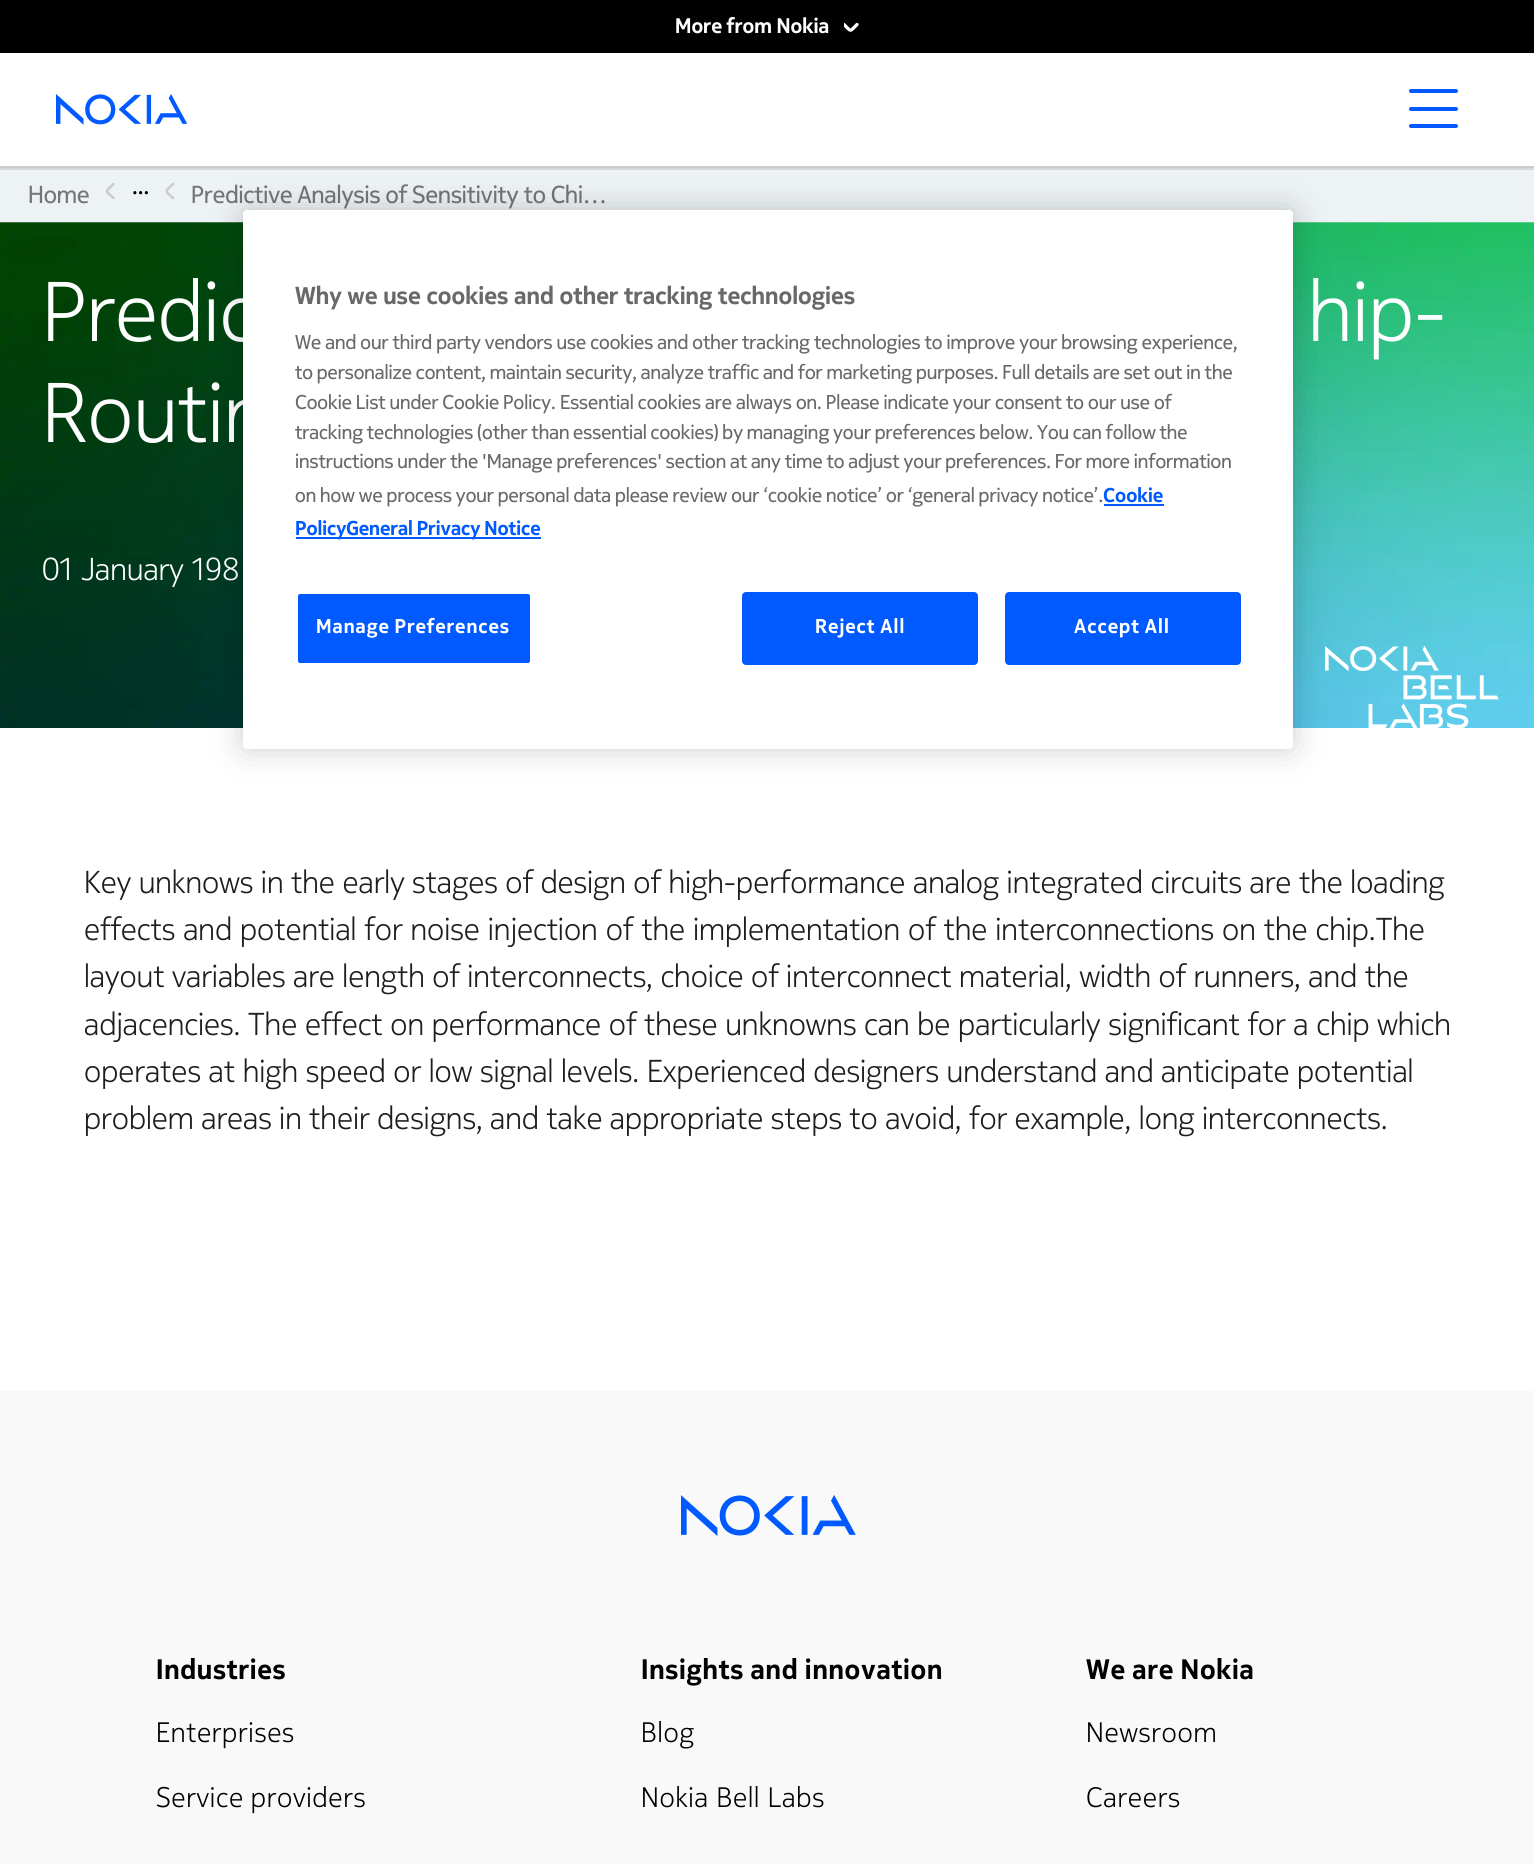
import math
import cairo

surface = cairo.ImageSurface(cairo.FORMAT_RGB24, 1534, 1864)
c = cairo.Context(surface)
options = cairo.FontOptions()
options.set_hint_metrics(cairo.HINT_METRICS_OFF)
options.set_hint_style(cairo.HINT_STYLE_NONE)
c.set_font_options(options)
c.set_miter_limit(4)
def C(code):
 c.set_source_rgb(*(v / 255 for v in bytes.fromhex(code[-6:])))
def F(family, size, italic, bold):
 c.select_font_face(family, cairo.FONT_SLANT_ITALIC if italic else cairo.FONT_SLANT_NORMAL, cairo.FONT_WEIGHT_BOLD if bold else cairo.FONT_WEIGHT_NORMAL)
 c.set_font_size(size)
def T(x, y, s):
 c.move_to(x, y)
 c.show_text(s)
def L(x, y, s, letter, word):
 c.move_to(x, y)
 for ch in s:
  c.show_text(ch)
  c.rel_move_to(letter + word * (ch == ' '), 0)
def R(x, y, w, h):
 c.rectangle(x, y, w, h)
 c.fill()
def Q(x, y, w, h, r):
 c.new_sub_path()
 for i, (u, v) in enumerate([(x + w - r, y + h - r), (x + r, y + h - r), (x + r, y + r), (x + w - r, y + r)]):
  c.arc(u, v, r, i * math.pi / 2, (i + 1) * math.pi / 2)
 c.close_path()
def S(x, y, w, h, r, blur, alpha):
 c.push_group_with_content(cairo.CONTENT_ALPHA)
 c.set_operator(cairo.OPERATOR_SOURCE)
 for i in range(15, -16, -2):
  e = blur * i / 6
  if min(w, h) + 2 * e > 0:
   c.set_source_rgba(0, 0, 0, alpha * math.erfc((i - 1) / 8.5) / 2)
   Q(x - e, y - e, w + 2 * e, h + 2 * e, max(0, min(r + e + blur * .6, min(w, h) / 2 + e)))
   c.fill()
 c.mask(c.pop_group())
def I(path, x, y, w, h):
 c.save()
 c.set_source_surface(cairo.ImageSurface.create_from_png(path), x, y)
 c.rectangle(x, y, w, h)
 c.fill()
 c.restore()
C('ffffff')
c.paint()
C('d8d8d8')
R(0,168,1534,2)
C('000000')
R(0,0,1534,53)
F('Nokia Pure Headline',21,0,1)
C('ffffff')
L(675,33,'More from Nokia',0,-.5)
c.save()
c.rectangle(844,21,17,12)
c.clip()
c.new_path()
c.move_to(857,24.5)
c.curve_to(849.5,32,851.5,32,844,24.5)
c.set_line_width(3.3)
c.set_line_cap(cairo.LINE_CAP_ROUND)
c.set_line_join(cairo.LINE_JOIN_ROUND)
c.stroke()
c.restore()
C('cccccc')
R(0,166,1534,2)
I('1.png',56,94,131,31)
C('005aff')
Q(1409,107,49,4,2)
c.fill()
Q(1409,89,49,4,2)
c.fill()
Q(1409,124,49,4,2)
c.fill()
C('edf2f5')
R(0,170,1534,52)
F('Nokia Pure Headline',24.5,0,0)
C('757575')
T(28,203,'Home')
c.new_path()
c.move_to(113.5,198)
c.curve_to(105,190,105,192.5,113.5,184)
C('cccccc')
c.set_line_width(2.6)
c.set_line_cap(cairo.LINE_CAP_ROUND)
c.set_line_join(cairo.LINE_JOIN_ROUND)
c.stroke()
C('000000')
T(132,194,'...')
c.new_path()
c.move_to(173,198)
c.curve_to(164.5,190,164.5,192.5,173,184)
C('cccccc')
c.stroke()
C('757575')
L(191,203,'Predictive Analysis of Sensitivity to Chi…',0,-.4)
I('2.png',0,222,1534,506)
F('Nokia Pure Headline Light',84,0,0)
C('ffffff')
L(42,341,'Predic',0,-1)
L(1308,341,'hip-',0,-1)
L(42,442,'Routin',0,-5)
F('Nokia Pure Headline Light',31.5,0,0)
T(42,580,'01 January 198')
I('3.png',1325,646,174,82)
C('1d1e20')
L(84,893,'Key unknows in the early stages of design of high-performance analog integrated circuits are the loading',0,-.4)
T(84,940,'effects and potential for noise injection of the implementation of the interconnections on the chip.The')
L(84,987,'layout variables are length of interconnects, choice of interconnect material, width of runners, and the',0,-.5)
L(84,1035,'adjacencies. The effect on performance of these unknowns can be particularly significant for a chip which',0,-.25)
L(84,1082,'operates at high speed or low signal levels.',0,-.25)
L(647,1082,'Experienced designers understand and anticipate potential',0,-.4)
L(84,1129,'problem areas in their designs, and take appropriate steps to avoid, for example, long interconnects.',0,-.6)
C('f9f9f9')
R(0,1391,1534,473)
I('4.png',681,1495,175,41)
F('Nokia Pure Headline',28,0,1)
C('000000')
L(156,1679,'Industries',.75,0)
F('Nokia Pure Headline Light',28,0,0)
L(156,1742,'Enterprises',.75,0)
L(156,1807,'Service providers',.75,-1)
F('Nokia Pure Headline',28,0,1)
L(641,1679,'Insights and innovation',.75,-1)
F('Nokia Pure Headline Light',28,0,0)
L(641,1742,'Blog',.75,0)
L(641,1807,'Nokia Bell Labs',.75,0)
F('Nokia Pure Headline',28,0,1)
L(1086,1679,'We are Nokia',.75,-1)
F('Nokia Pure Headline Light',28,0,0)
L(1086,1742,'Newsroom',.75,0)
L(1086,1807,'Careers',.75,0)
C('000000')
S(243,210,1050,539,4,16,.2)
C('ffffff')
Q(243,210,1050,539,4)
c.fill()
F('Nokia Pure Headline',24.5,0,1)
C('696969')
L(295,304,'Why we use cookies and other tracking technologies',0,-.25)
F('Nokia Pure Headline',19.9,0,0)
L(295,349,'We and our third party vendors use cookies and other tracking technologies to improve your browsing experience,',0,-.3)
L(295,379,'to personalize content, maintain security, analyze traffic and for marketing purposes. Full details are set out in the',0,-.5)
L(295,409,'Cookie List under Cookie Policy.',0,-.5)
L(560,409,'Essential cookies are always on. Please indicate your consent to our use of',0,-.25)
L(295,439,'tracking technologies (other than essential cookies) by managing your preferences below. You can follow the',0,-.6)
L(295,468,'instructions under the \'Manage preferences\' section at any time to adjust your preferences. For more information',0,-.5)
L(295,502,'on how we process your personal data please review our ‘cookie notice’ or ‘general privacy notice’.',0,-.4)
F('Nokia Pure Headline',19.9,0,1)
C('005aff')
T(1103,502,'Cookie')
R(1104,504,60,2)
R(296,537,245,2)
T(295,535,'Policy')
L(346,535,'General Privacy Notice',0,-1)
Q(297,593,234,71,3)
c.fill_preserve()
C('ffffff')
c.set_line_width(2)
c.set_line_cap(cairo.LINE_CAP_BUTT)
c.set_line_join(cairo.LINE_JOIN_MITER)
c.stroke()
L(316,633,'Manage Preferences',1,-1)
C('005aff')
Q(743,593,234,71,3)
c.fill_preserve()
c.stroke()
C('ffffff')
L(815,633,'Reject All',1,-1)
C('005aff')
Q(1006,593,234,71,3)
c.fill_preserve()
c.stroke()
C('ffffff')
L(1074,633,'Accept All',1,-1)
surface.write_to_png('o.png')
